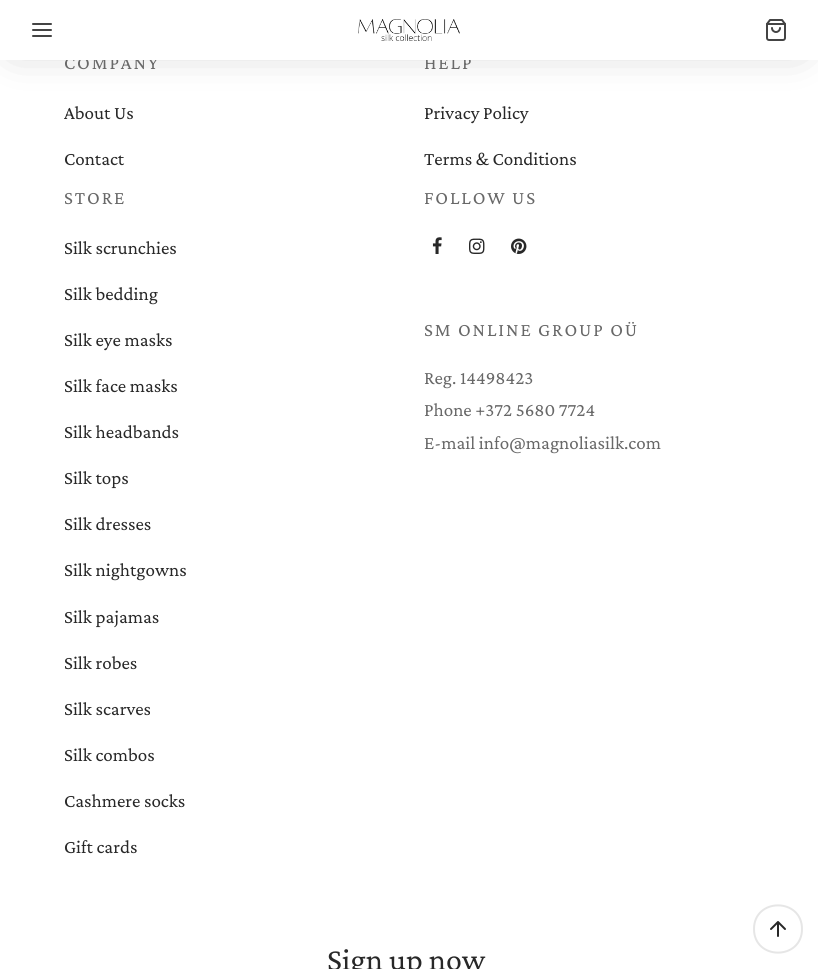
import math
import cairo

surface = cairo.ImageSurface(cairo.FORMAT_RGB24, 818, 969)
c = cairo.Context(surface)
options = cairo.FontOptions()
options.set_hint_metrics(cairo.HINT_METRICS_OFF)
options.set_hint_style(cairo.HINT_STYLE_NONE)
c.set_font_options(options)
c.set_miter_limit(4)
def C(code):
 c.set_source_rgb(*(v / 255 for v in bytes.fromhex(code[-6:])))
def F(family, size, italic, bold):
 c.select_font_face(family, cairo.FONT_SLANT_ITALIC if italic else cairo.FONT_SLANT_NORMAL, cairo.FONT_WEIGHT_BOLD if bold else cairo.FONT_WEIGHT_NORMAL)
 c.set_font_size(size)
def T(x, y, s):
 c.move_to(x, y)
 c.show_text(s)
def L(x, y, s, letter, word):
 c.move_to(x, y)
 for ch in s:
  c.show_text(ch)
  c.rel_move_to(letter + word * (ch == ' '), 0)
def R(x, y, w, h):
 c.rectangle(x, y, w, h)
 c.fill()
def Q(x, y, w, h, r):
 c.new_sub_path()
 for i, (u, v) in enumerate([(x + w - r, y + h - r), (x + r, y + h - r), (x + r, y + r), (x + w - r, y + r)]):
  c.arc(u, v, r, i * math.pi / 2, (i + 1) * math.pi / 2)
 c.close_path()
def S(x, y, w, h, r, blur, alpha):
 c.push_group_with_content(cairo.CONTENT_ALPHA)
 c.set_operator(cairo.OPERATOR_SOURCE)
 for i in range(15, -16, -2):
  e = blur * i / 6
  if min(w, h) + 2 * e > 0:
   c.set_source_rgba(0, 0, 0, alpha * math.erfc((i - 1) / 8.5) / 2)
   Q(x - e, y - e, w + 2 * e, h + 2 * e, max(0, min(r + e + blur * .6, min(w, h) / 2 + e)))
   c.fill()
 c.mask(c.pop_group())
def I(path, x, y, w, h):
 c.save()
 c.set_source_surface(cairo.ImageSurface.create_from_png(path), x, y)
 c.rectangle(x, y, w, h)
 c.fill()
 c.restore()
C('ffffff')
c.paint()
C('000000')
S(18,22,778,20,0,22.5,.3)
F('Crimson Pro',19,0,0)
C('686868')
L(64,69,'COMPANY',1.9,0)
L(424,69,'HELP',1.9,0)
C('ffffff')
R(0,0,818,60)
c.new_path()
c.move_to(33,30)
c.line_to(51,30)
c.move_to(33,24)
c.line_to(51,24)
c.move_to(33,36)
c.line_to(51,36)
C('444444')
c.set_line_cap(cairo.LINE_CAP_ROUND)
c.set_line_join(cairo.LINE_JOIN_ROUND)
c.stroke()
I('1.png',358,19,102,22)
I('2.png',766,19,20,22)
C('282828')
T(64,119,'About Us')
T(64,165,'Contact')
T(424,119,'Privacy Policy')
T(424,165,'Terms & Conditions')
C('686868')
L(64,204,'STORE',1.9,0)
C('282828')
T(64,254,'Silk scrunchies')
T(64,300,'Silk bedding')
T(64,346,'Silk eye masks')
T(64,392,'Silk face masks')
T(64,438,'Silk headbands')
T(64,484,'Silk tops')
T(64,530,'Silk dresses')
T(64,576,'Silk nightgowns')
T(64,623,'Silk pajamas')
T(64,669,'Silk robes')
T(64,715,'Silk scarves')
T(64,761,'Silk combos')
T(64,807,'Cashmere socks')
T(64,853,'Gift cards')
C('686868')
L(424,204,'FOLLOW US',1.9,0)
I('3.png',432,237,10,17)
I('4.png',469,238,16,16)
I('5.png',511,238,16,16)
L(424,336,'SM ONLINE GROUP OÜ',1.9,0)
T(424,384,'Reg. 14498423')
T(424,416,'Phone +372 5680 7724')
T(424,449,'E-mail info@magnoliasilk.com')
F('Crimson Pro',32,0,0)
C('282828')
T(327,970,'Sign up now')
c.new_path()
c.move_to(754,929)
c.curve_to(754,897.5,802,897.5,802,929)
c.curve_to(802,960.5,754,960.5,754,929)
c.close_path()
C('e6e6e6')
c.set_line_cap(cairo.LINE_CAP_BUTT)
c.set_line_join(cairo.LINE_JOIN_MITER)
c.stroke()
c.new_path()
c.move_to(778,936)
c.line_to(778,922)
c.move_to(771,929)
c.line_to(778,922)
c.line_to(785,929)
C('282828')
c.set_line_cap(cairo.LINE_CAP_ROUND)
c.set_line_join(cairo.LINE_JOIN_ROUND)
c.stroke()
surface.write_to_png('o.png')
